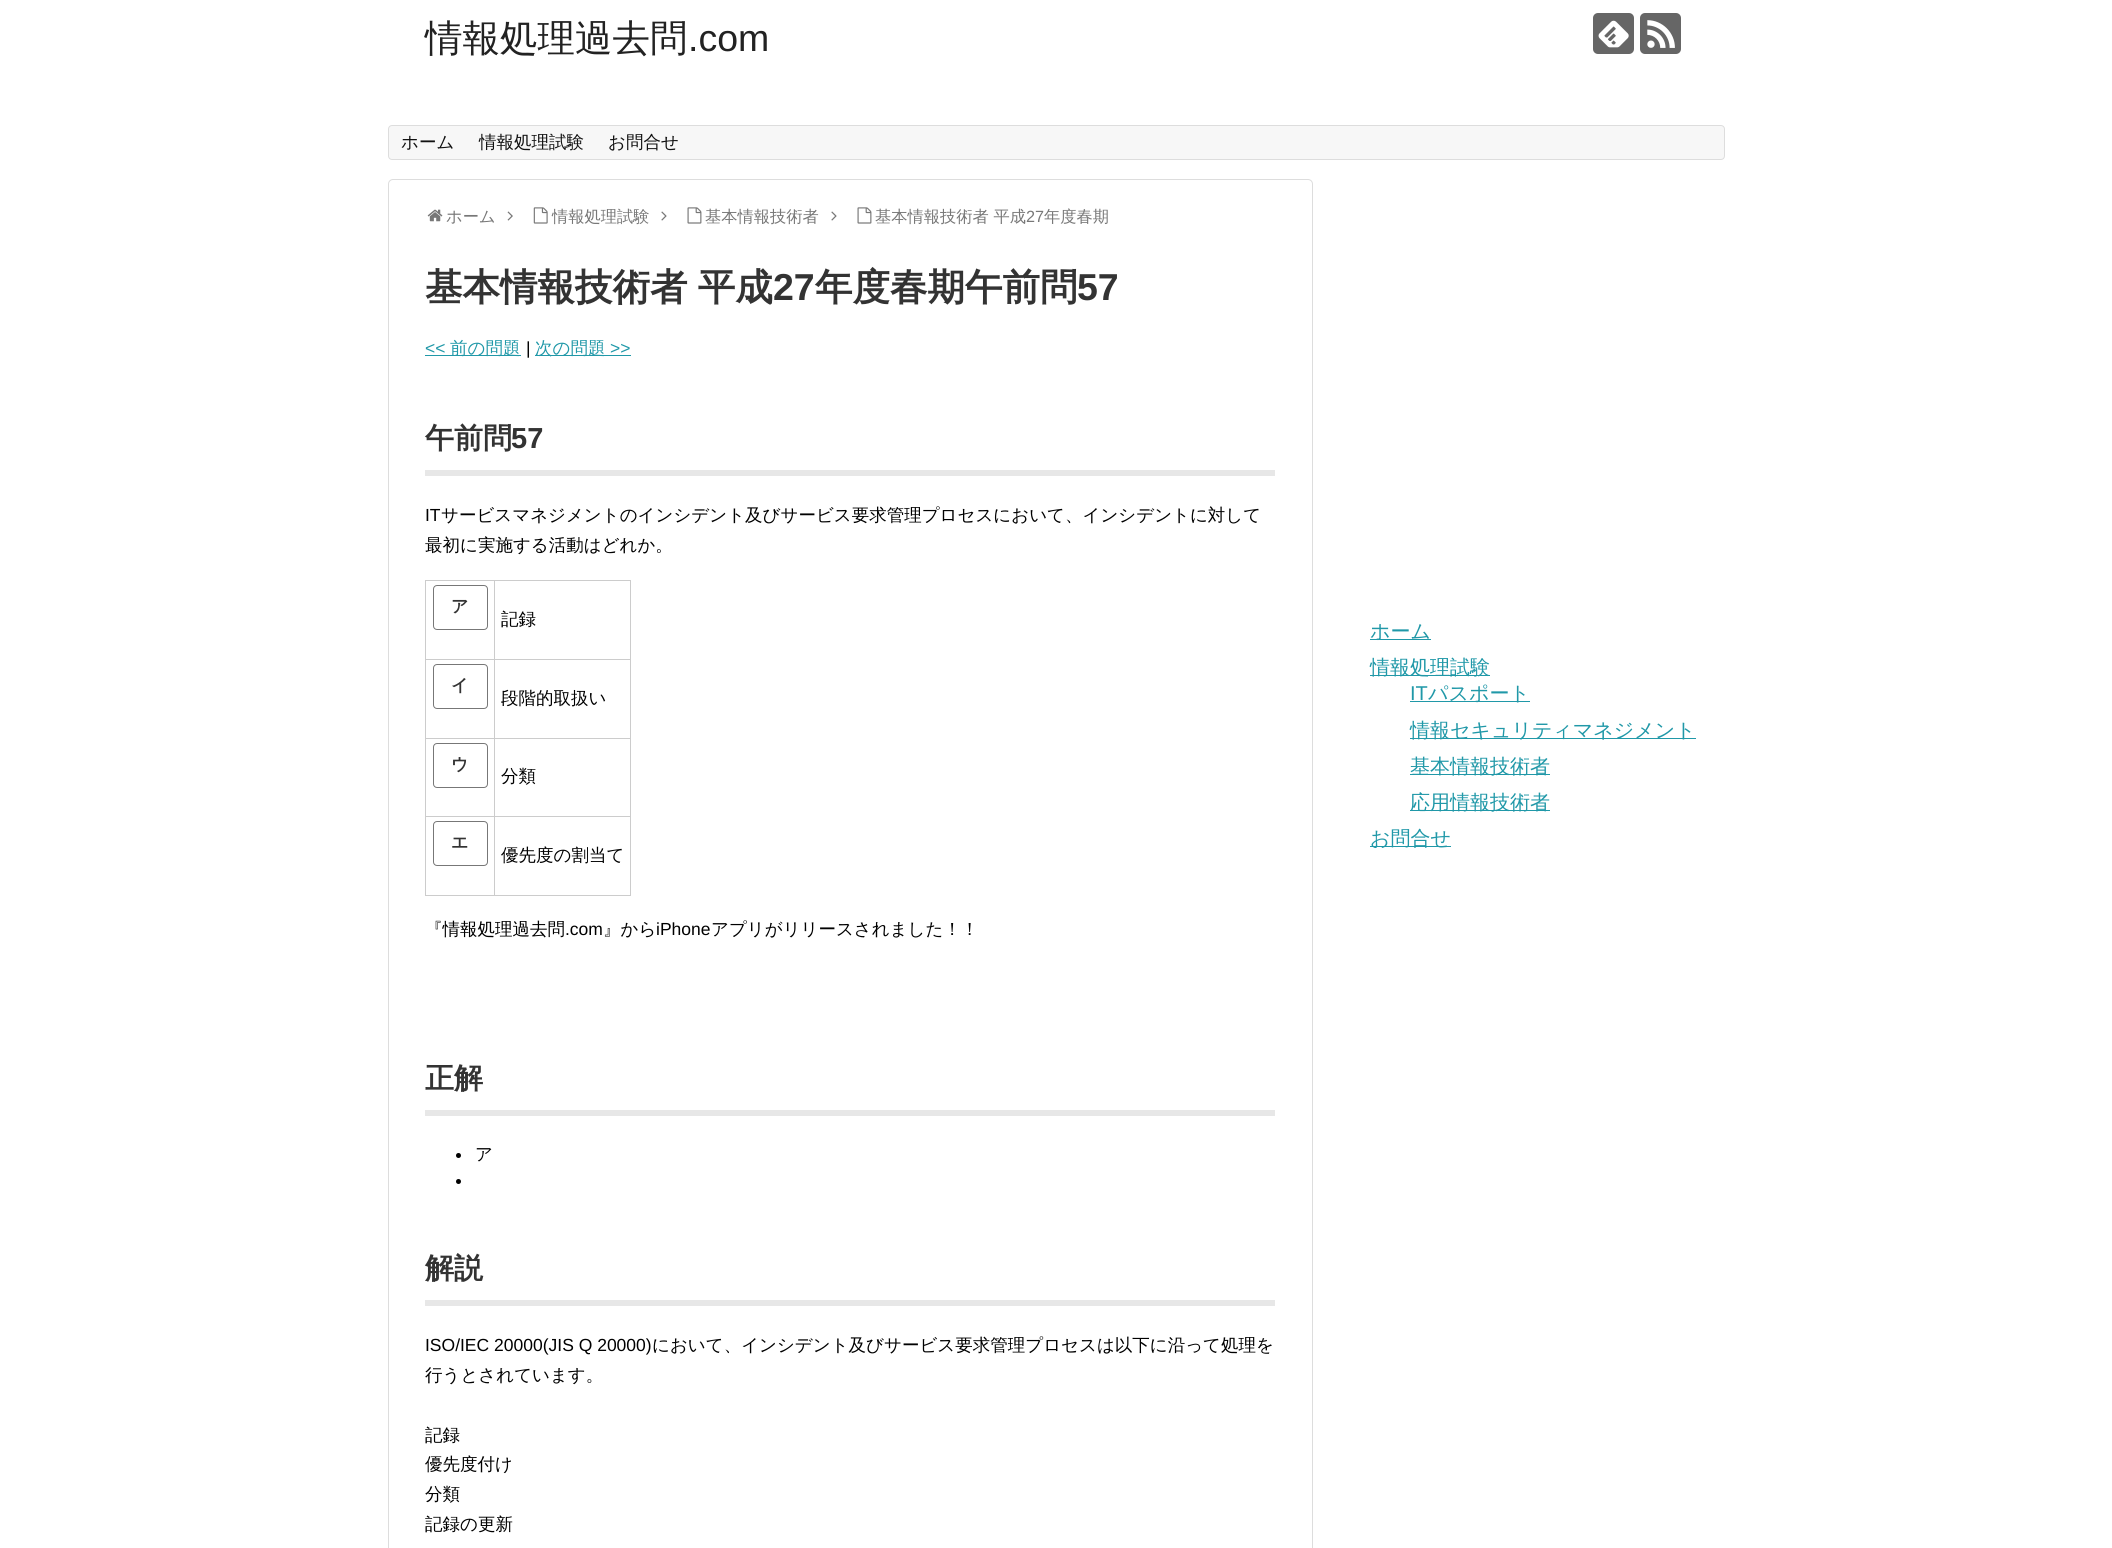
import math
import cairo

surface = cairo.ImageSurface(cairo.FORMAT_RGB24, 2112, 1548)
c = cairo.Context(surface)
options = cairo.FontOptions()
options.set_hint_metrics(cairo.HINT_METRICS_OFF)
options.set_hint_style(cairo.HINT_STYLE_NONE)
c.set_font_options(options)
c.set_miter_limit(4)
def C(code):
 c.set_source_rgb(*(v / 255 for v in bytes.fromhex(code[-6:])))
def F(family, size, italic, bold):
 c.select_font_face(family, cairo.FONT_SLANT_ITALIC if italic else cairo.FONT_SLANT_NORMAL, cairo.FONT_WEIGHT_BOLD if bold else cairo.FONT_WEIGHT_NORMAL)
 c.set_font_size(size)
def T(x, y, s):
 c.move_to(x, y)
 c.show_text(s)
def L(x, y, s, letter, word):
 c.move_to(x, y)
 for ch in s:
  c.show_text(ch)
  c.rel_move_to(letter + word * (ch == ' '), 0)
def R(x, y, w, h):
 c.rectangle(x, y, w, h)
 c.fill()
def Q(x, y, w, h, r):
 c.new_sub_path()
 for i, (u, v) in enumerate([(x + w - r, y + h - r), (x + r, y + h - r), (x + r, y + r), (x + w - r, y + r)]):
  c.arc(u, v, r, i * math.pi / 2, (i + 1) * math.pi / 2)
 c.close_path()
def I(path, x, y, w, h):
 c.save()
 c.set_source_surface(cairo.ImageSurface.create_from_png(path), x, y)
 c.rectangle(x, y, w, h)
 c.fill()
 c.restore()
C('ffffff')
c.paint()
F('WenQuanYi Zen Hei Medium',37.5,0,0)
C('222222')
T(425,51,'情報処理過去問')
F('Liberation Sans',37.5,0,0)
T(688,51,'.com')
C('666666')
Q(1593,13,41,41,5)
c.fill()
I('1.png',1598,20,31,28)
Q(1640,13,41,41,5)
c.fill()
I('2.png',1647,20,28,28)
C('f7f7f7')
Q(388.5,125.5,1336,34,3.5)
c.fill_preserve()
C('dddddd')
c.set_line_width(1)
c.stroke()
F('WenQuanYi Zen Hei Medium',17.5,0,0)
C('111111')
T(401,148,'ホーム')
T(479,148,'情報処理試験')
T(608,148,'お問合せ')
Q(388.5,179.5,924,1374,4.5)
C('dddddd')
c.stroke()
I('3.png',427,209,16,13)
F('WenQuanYi Zen Hei Medium',16.25,0,0)
C('777777')
T(446,222,'ホーム')
I('4.png',507,211,6,10)
I('5.png',533,207,15,17)
T(552,222,'情報処理試験')
I('6.png',661,211,6,10)
I('7.png',687,207,15,17)
T(705,222,'基本情報技術者')
I('6.png',831,211,6,10)
I('7.png',857,207,15,17)
T(875,222,'基本情報技術者 平成')
F('Liberation Sans',16.25,0,0)
T(1026,222,'27')
F('WenQuanYi Zen Hei Medium',16.25,0,0)
T(1044,222,'年度春期')
F('WenQuanYi Zen Hei',37.5,0,1)
C('333333')
L(425,300,'基本情報技術者 平成',0,-1)
F('Liberation Sans',37.5,0,1)
T(773,300,'27')
F('WenQuanYi Zen Hei',37.5,0,1)
T(815,300,'年度春期午前問')
F('Liberation Sans',37.5,0,1)
T(1077,300,'57')
F('Liberation Sans',17.5,0,0)
C('2098a8')
T(425,354,'<<')
R(425,355,96,1)
F('WenQuanYi Zen Hei Medium',17.5,0,0)
T(450,354,'前の問題')
F('Liberation Sans',17.5,0,0)
C('000000')
T(526,354,'|')
C('2098a8')
R(535,355,96,1)
F('WenQuanYi Zen Hei Medium',17.5,0,0)
T(535,354,'次の問題')
F('Liberation Sans',17.5,0,0)
T(610,354,'>>')
C('e7e7e7')
R(425,470,850,6)
F('WenQuanYi Zen Hei',29,0,1)
C('333333')
T(425,448,'午前問')
F('Liberation Sans',29,0,1)
T(511,448,'57')
F('Liberation Sans',17.5,0,0)
C('000000')
T(425,521,'IT')
F('WenQuanYi Zen Hei Medium',17.5,0,0)
T(441,521,'サービスマネジメントのインシデント及びサービス要求管理プロセスにおいて、インシデントに対して')
T(425,551,'最初に実施する活動はどれか。')
C('cccccc')
R(494,580,137,1)
R(494,659,137,1)
R(494,738,137,1)
R(494,816,137,1)
R(630,816,1,80)
R(494,895,137,1)
R(494,816,1,80)
R(425,816,70,1)
R(494,738,1,80)
R(425,738,70,1)
R(494,659,1,80)
R(425,659,70,1)
R(494,580,1,80)
R(425,580,70,1)
R(425,895,70,1)
R(425,816,1,80)
R(425,738,1,80)
R(425,659,1,80)
R(425,580,1,80)
Q(433.5,585.5,54,44,3.5)
C('777777')
c.stroke()
F('WenQuanYi Zen Hei',17,0,1)
C('333333')
T(451,612,'ア')
C('cccccc')
R(630,738,1,80)
R(630,659,1,80)
R(630,580,1,80)
F('WenQuanYi Zen Hei Medium',17.5,0,0)
C('000000')
T(501,625,'記録')
Q(433.5,664.5,54,44,3.5)
C('777777')
c.stroke()
F('WenQuanYi Zen Hei',17,0,1)
C('333333')
T(451,691,'イ')
F('WenQuanYi Zen Hei Medium',17.5,0,0)
C('000000')
T(501,704,'段階的取扱い')
Q(433.5,743.5,54,44,3.5)
C('777777')
c.stroke()
F('WenQuanYi Zen Hei',17,0,1)
C('333333')
T(451,770,'ウ')
F('WenQuanYi Zen Hei Medium',17.5,0,0)
C('000000')
T(501,782,'分類')
Q(433.5,821.5,54,44,3.5)
C('777777')
c.stroke()
F('WenQuanYi Zen Hei',17,0,1)
C('333333')
T(451,848,'エ')
F('WenQuanYi Zen Hei Medium',17.5,0,0)
C('000000')
T(501,861,'優先度の割当て')
T(425,935,'『情報処理過去問')
F('Liberation Sans',17.5,0,0)
T(565,935,'.com')
F('WenQuanYi Zen Hei Medium',17.5,0,0)
T(603,935,'』から')
F('Liberation Sans',17.5,0,0)
T(656,935,'iPhone')
F('WenQuanYi Zen Hei Medium',17.5,0,0)
T(711,935,'アプリがリリースされました！！')
C('e7e7e7')
R(425,1110,850,6)
F('WenQuanYi Zen Hei',29,0,1)
C('333333')
T(425,1088,'正解')
C('000000')
c.new_path()
c.arc(458.5,1155.5,2.5,0,2 * math.pi)
c.fill()
F('WenQuanYi Zen Hei Medium',17.5,0,0)
T(475,1160,'ア')
c.new_path()
c.arc(458.5,1181.5,2.5,0,2 * math.pi)
c.fill()
C('e7e7e7')
R(425,1300,850,6)
F('WenQuanYi Zen Hei',29,0,1)
C('333333')
T(425,1278,'解説')
F('Liberation Sans',17.5,0,0)
C('000000')
T(425,1351,'ISO/IEC 20000(JIS Q 20000)')
F('WenQuanYi Zen Hei Medium',17.5,0,0)
T(652,1351,'において、インシデント及びサービス要求管理プロセスは以下に沿って処理を')
T(425,1381,'行うとされています。')
T(425,1441,'記録')
T(425,1470,'優先度付け')
T(425,1500,'分類')
T(425,1530,'記録の更新')
C('2098a8')
R(1370,639,61,1)
F('WenQuanYi Zen Hei Medium',20,0,0)
T(1370,638,'ホーム')
R(1370,675,120,1)
T(1370,674,'情報処理試験')
F('Liberation Sans',20,0,0)
T(1410,700,'IT')
R(1410,701,120,1)
F('WenQuanYi Zen Hei Medium',20,0,0)
T(1428,700,'パスポート')
R(1410,738,286,1)
T(1410,737,'情報セキュリティマネジメント')
R(1410,774,140,1)
T(1410,773,'基本情報技術者')
R(1410,810,140,1)
T(1410,809,'応用情報技術者')
R(1370,846,81,1)
T(1370,845,'お問合せ')
surface.write_to_png('o.png')
